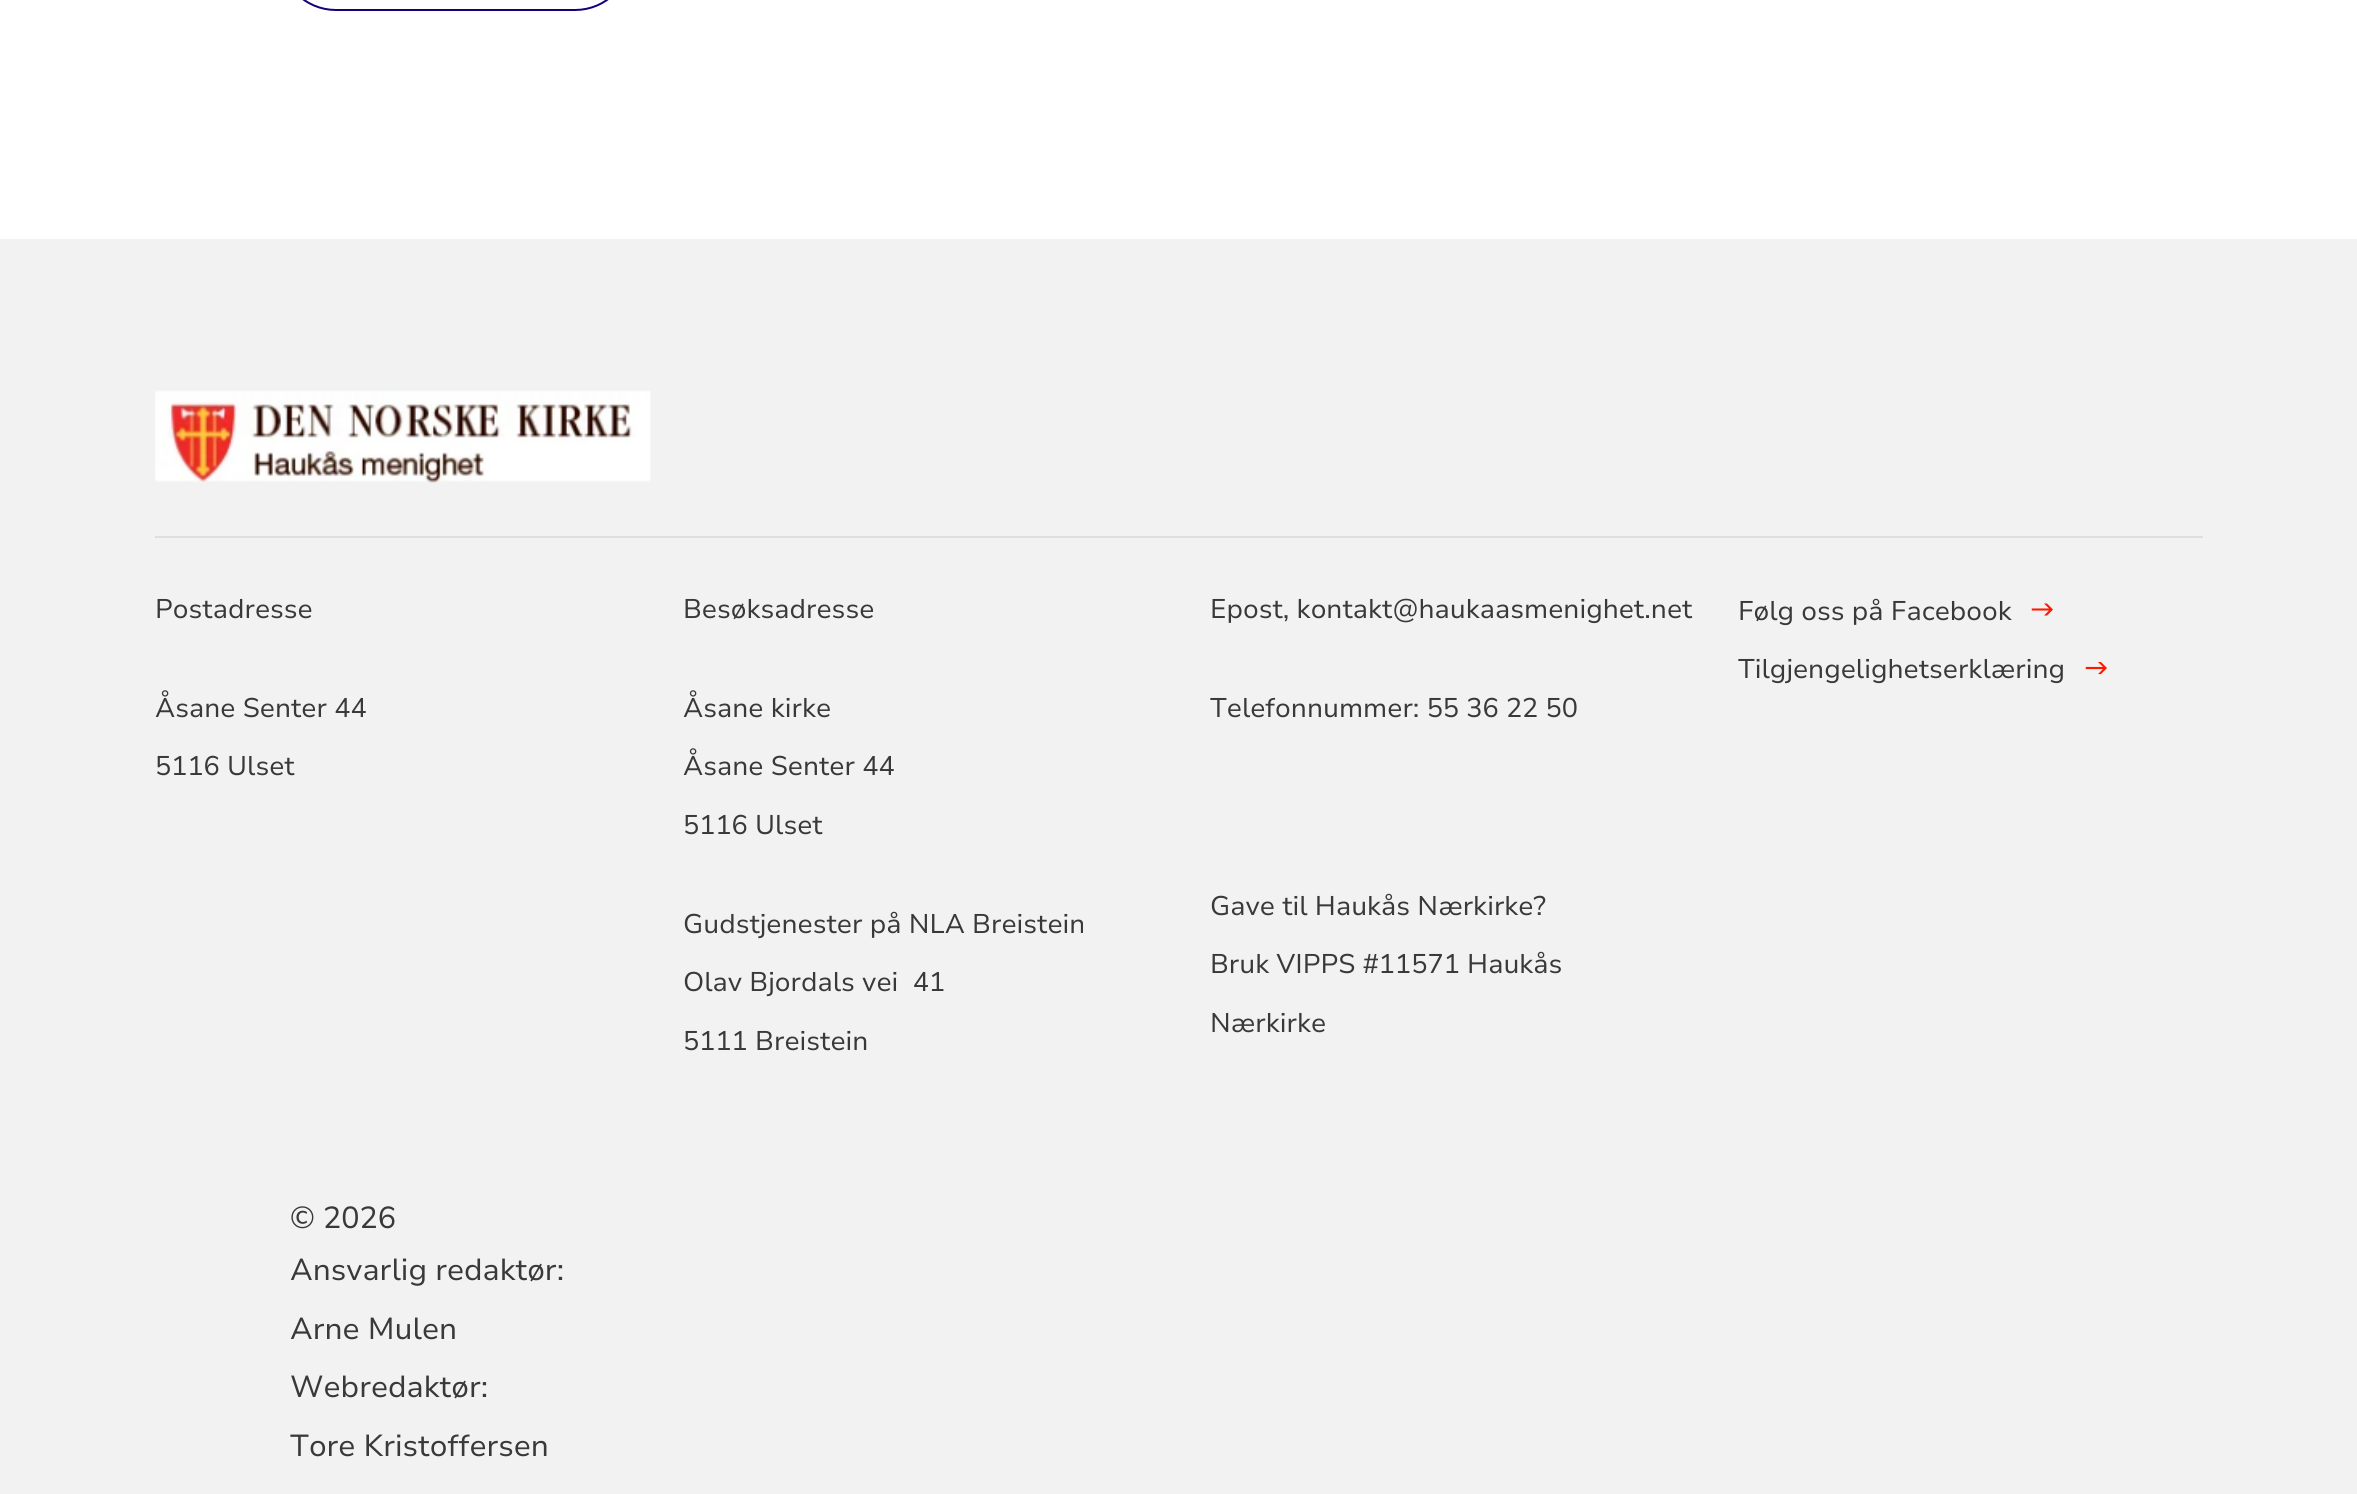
import math
import cairo

surface = cairo.ImageSurface(cairo.FORMAT_RGB24, 2357, 1494)
c = cairo.Context(surface)
options = cairo.FontOptions()
options.set_hint_metrics(cairo.HINT_METRICS_OFF)
options.set_hint_style(cairo.HINT_STYLE_NONE)
c.set_font_options(options)
c.set_miter_limit(4)
def C(code):
 c.set_source_rgb(*(v / 255 for v in bytes.fromhex(code[-6:])))
def F(family, size, italic, bold):
 c.select_font_face(family, cairo.FONT_SLANT_ITALIC if italic else cairo.FONT_SLANT_NORMAL, cairo.FONT_WEIGHT_BOLD if bold else cairo.FONT_WEIGHT_NORMAL)
 c.set_font_size(size)
def T(x, y, s):
 c.move_to(x, y)
 c.show_text(s)
def R(x, y, w, h):
 c.rectangle(x, y, w, h)
 c.fill()
def Q(x, y, w, h, r):
 c.new_sub_path()
 for i, (u, v) in enumerate([(x + w - r, y + h - r), (x + r, y + h - r), (x + r, y + r), (x + w - r, y + r)]):
  c.arc(u, v, r, i * math.pi / 2, (i + 1) * math.pi / 2)
 c.close_path()
def I(path, x, y, w, h):
 c.save()
 c.set_source_surface(cairo.ImageSurface.create_from_png(path), x, y)
 c.rectangle(x, y, w, h)
 c.fill()
 c.restore()
C('ffffff')
c.paint()
Q(280,-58,351,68,56)
C('13017c')
c.stroke()
C('f2f2f2')
R(0,239,2357,1255)
C('dedede')
R(155,536,2048,2)
I('1.png',155,390,496,93)
F('Nunito Sans',27,0,0)
C('393939')
T(155,618,'Postadresse')
T(155,717,'Åsane Senter 44')
T(155,775,'5116 Ulset')
T(683,618,'Besøksadresse')
T(683,717,'Åsane kirke')
T(683,775,'Åsane Senter 44')
T(683,834,'5116 Ulset')
T(683,933,'Gudstjenester på NLA Breistein')
T(683,991,'Olav Bjordals vei  41')
T(683,1050,'5111 Breistein')
T(1210,618,'Epost, kontakt@haukaasmenighet.net')
T(1210,717,'Telefonnummer: 55 36 22 50')
T(1210,915,'Gave til Haukås Nærkirke?')
T(1210,973,'Bruk VIPPS #11571 Haukås')
T(1210,1032,'Nærkirke')
T(1738,620,'Følg oss på Facebook')
I('2.png',2031,603,22,13)
T(1738,678,'Tilgjengelighetserklæring')
I('3.png',2085,662,22,13)
F('Nunito Sans',30.4,0,0)
T(290,1228,'© 2026')
T(290,1280,'Ansvarlig redaktør:')
T(290,1339,'Arne Mulen')
T(290,1397,'Webredaktør:')
T(290,1456,'Tore Kristoffersen')
surface.write_to_png('o.png')
